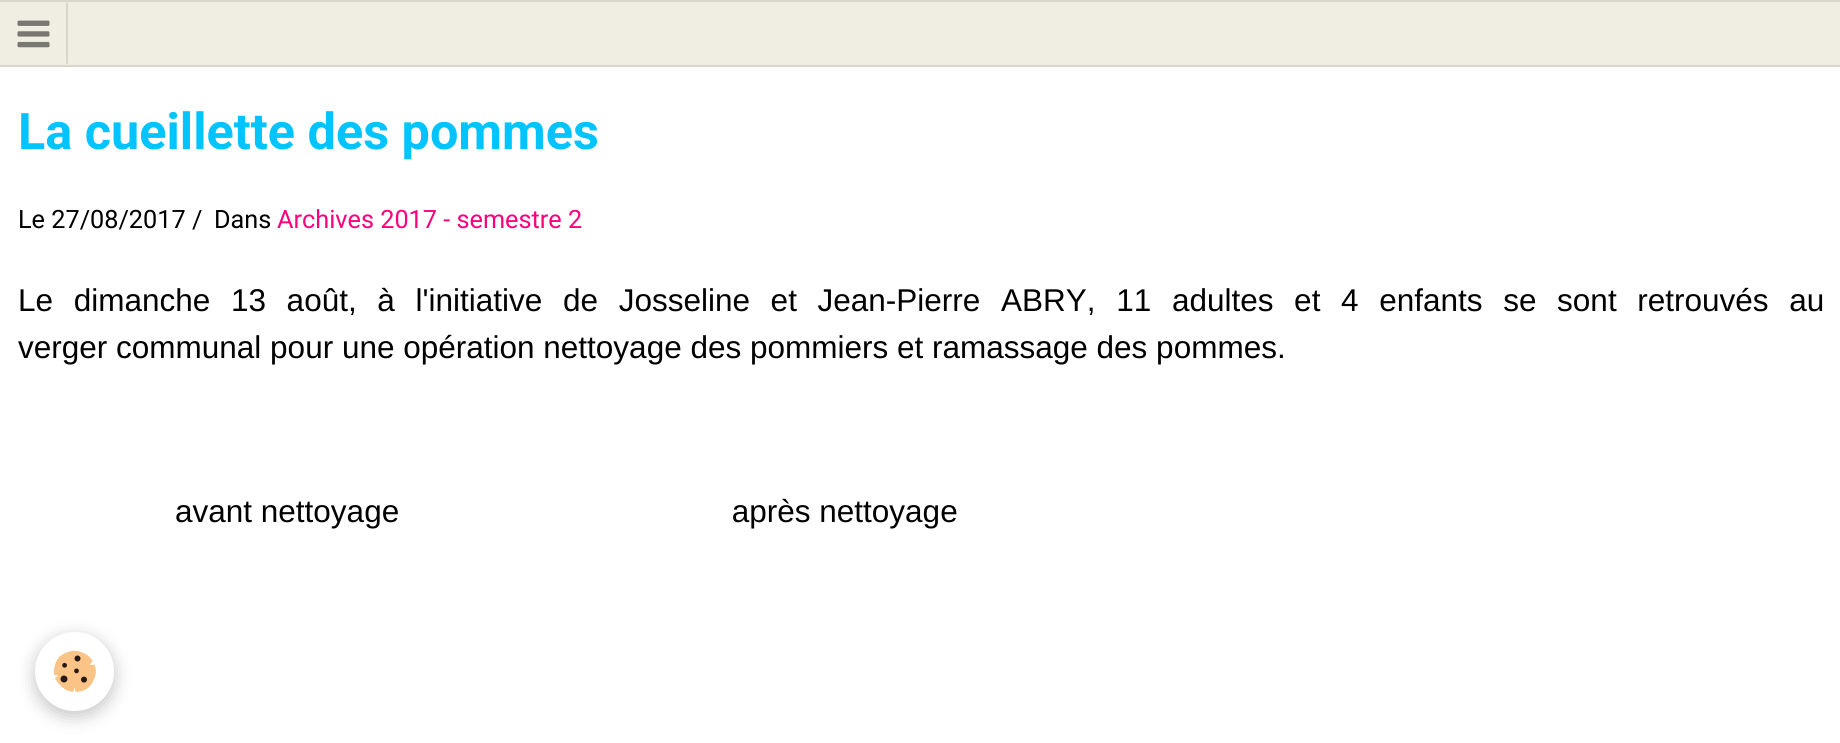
import math
import cairo

surface = cairo.ImageSurface(cairo.FORMAT_RGB24, 1840, 743)
c = cairo.Context(surface)
options = cairo.FontOptions()
options.set_hint_metrics(cairo.HINT_METRICS_OFF)
options.set_hint_style(cairo.HINT_STYLE_NONE)
c.set_font_options(options)
c.set_miter_limit(4)
def C(code):
 c.set_source_rgb(*(v / 255 for v in bytes.fromhex(code[-6:])))
def F(family, size, italic, bold):
 c.select_font_face(family, cairo.FONT_SLANT_ITALIC if italic else cairo.FONT_SLANT_NORMAL, cairo.FONT_WEIGHT_BOLD if bold else cairo.FONT_WEIGHT_NORMAL)
 c.set_font_size(size)
def T(x, y, s):
 c.move_to(x, y)
 c.show_text(s)
def L(x, y, s, letter, word):
 c.move_to(x, y)
 for ch in s:
  c.show_text(ch)
  c.rel_move_to(letter + word * (ch == ' '), 0)
def R(x, y, w, h):
 c.rectangle(x, y, w, h)
 c.fill()
def Q(x, y, w, h, r):
 c.new_sub_path()
 for i, (u, v) in enumerate([(x + w - r, y + h - r), (x + r, y + h - r), (x + r, y + r), (x + w - r, y + r)]):
  c.arc(u, v, r, i * math.pi / 2, (i + 1) * math.pi / 2)
 c.close_path()
def S(x, y, w, h, r, blur, alpha):
 c.push_group_with_content(cairo.CONTENT_ALPHA)
 c.set_operator(cairo.OPERATOR_SOURCE)
 for i in range(15, -16, -2):
  e = blur * i / 6
  if min(w, h) + 2 * e > 0:
   c.set_source_rgba(0, 0, 0, alpha * math.erfc((i - 1) / 8.5) / 2)
   Q(x - e, y - e, w + 2 * e, h + 2 * e, max(0, min(r + e + blur * .6, min(w, h) / 2 + e)))
   c.fill()
 c.mask(c.pop_group())
def I(path, x, y, w, h):
 c.save()
 c.set_source_surface(cairo.ImageSurface.create_from_png(path), x, y)
 c.rectangle(x, y, w, h)
 c.fill()
 c.restore()
C('ffffff')
c.paint()
C('f0eee2')
R(0,2,1840,63)
C('d8d6cb')
R(0,0,1840,2)
R(0,65,1840,2)
c.new_path()
c.move_to(68,2)
c.line_to(68,65)
c.line_to(66,63)
c.line_to(66,4)
c.close_path()
c.fill()
I('1.png',17,20,33,28)
F('Roboto',50.4,0,1)
C('00c4ff')
T(18,149,'La cueillette des pommes')
F('Roboto',25.25,0,0)
C('000000')
T(18,228,'Le 27/08/2017 /')
T(214,228,'Dans')
C('ff007d')
T(277,228,'Archives 2017 - semestre 2')
F('Liberation Sans',31.5,0,0)
C('000000')
L(18,311,'Le dimanche 13 août, à l\'initiative de Josseline et Jean-Pierre ABRY, 11 adultes et 4 enfants se sont retrouvés au',0,11.9)
T(18,358,'verger communal pour une opération nettoyage des pommiers et ramassage des pommes.')
T(175,522,'avant nettoyage                                      après nettoyage')
C('000000')
S(35,637,79,79,39.5,9,.24)
C('ffffff')
c.arc(74.5,671.5,39.5,0,2 * math.pi)
c.fill()
I('2.png',53,650,43,42)
surface.write_to_png('o.png')
